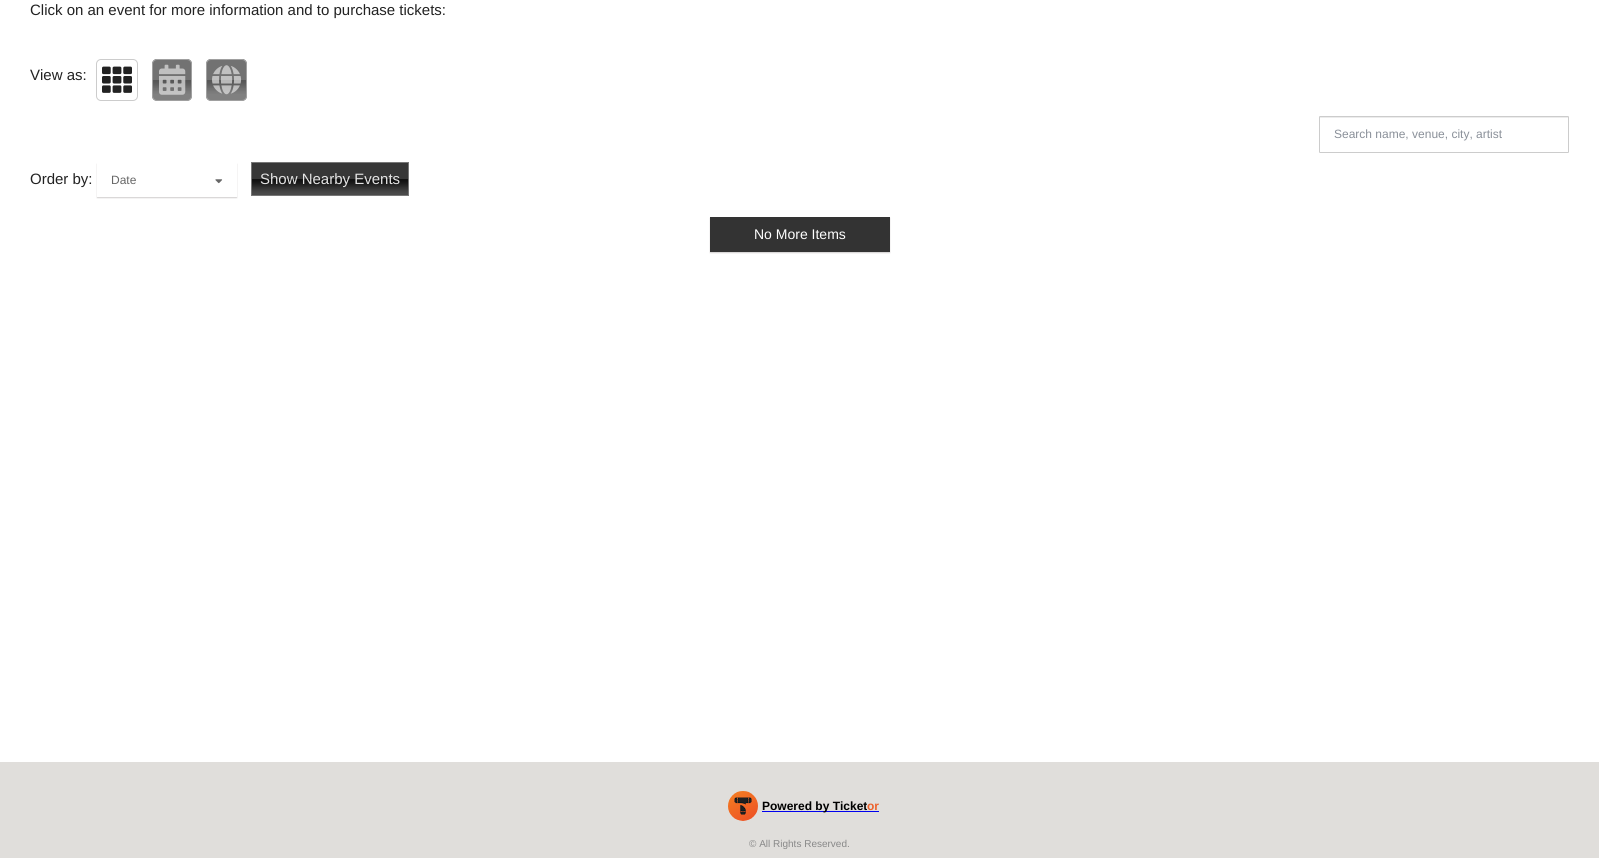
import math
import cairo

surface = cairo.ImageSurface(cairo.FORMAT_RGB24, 1599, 858)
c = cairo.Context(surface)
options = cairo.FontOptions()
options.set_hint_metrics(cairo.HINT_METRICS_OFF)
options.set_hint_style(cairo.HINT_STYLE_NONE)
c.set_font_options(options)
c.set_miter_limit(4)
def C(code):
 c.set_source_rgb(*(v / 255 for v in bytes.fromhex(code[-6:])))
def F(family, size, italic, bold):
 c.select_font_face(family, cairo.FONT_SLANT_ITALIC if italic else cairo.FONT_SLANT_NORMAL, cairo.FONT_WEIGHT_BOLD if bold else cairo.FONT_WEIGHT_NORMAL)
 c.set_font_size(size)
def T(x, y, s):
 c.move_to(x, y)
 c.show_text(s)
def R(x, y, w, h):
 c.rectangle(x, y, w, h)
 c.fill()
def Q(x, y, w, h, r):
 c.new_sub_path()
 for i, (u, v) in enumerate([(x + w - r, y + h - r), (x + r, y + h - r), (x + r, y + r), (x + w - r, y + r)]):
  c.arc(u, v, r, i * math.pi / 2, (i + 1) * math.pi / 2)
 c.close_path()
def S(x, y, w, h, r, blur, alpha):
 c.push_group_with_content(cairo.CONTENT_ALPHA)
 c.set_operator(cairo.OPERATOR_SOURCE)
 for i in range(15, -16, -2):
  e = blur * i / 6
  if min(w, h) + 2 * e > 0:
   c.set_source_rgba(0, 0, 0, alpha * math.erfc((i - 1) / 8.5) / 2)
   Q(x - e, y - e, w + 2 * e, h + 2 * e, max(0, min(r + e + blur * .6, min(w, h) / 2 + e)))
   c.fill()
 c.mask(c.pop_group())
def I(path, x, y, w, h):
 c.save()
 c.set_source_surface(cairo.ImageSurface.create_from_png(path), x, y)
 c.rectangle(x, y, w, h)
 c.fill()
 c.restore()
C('e0dedb')
c.paint()
C('ffffff')
R(0,0,1599,762)
F('Liberation Sans',15,0,0)
C('222222')
T(30,15,'Click on an event for more information and to purchase tickets:')
T(30,80,'View as:')
Q(96.5,59.5,41,41,4.5)
C('cccccc')
c.set_line_width(1)
c.stroke()
I('1.png',102,66,30,27)
I('2.png',152,59,40,42)
Q(152.5,59.5,39,41,4.5)
C('a0a0a0')
c.stroke()
I('3.png',159,64,27,31)
I('4.png',206,59,41,42)
Q(206.5,59.5,40,41,4.5)
c.stroke()
I('5.png',212,65,30,30)
C('ececec')
R(1320,117,248,1)
Q(1319.5,116.5,249,36,.5)
C('cccccc')
c.stroke()
F('Liberation Sans',12,0,0)
C('8a9099')
T(1334,138,'Search name, venue, city, artist')
F('Liberation Sans',15,0,0)
C('222222')
T(30,184,'Order by:')
c.save()
c.set_fill_rule(cairo.FILL_RULE_EVEN_ODD)
c.new_path()
c.move_to(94,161)
c.line_to(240,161)
c.line_to(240,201)
c.line_to(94,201)
c.close_path()
c.move_to(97,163)
c.line_to(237,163)
c.line_to(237,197)
c.line_to(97,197)
c.close_path()
c.clip()
C('221919')
S(97,164,140,34,0,.5,.2)
c.restore()
F('Liberation Sans',12,0,0)
C('676767')
T(111,184,'Date')
I('6.png',215,179,8,5)
I('7.png',252,163,156,32)
c.rectangle(251.5,162.5,157,33)
C('777777')
c.stroke()
F('Liberation Sans',15,0,0)
C('e3e3e3')
T(260,184,'Show Nearby Events')
C('221919')
S(710,218,180,35,0,.5,.2)
C('333333')
R(710,217,180,35)
F('Liberation Sans',14,0,0)
C('ffffff')
T(754,239,'No More Items')
I('8.png',728,791,30,30)
C('0000ee')
R(762,811,105,1)
F('Liberation Sans',12,0,1)
C('000000')
T(762,810,'Powered by Ticket')
C('0000ee')
R(867,811,12,1)
C('ed612b')
T(867,810,'or')
F('Liberation Sans',10,0,0)
C('888888')
T(749,847,'© All Rights Reserved.')
surface.write_to_png('o.png')
